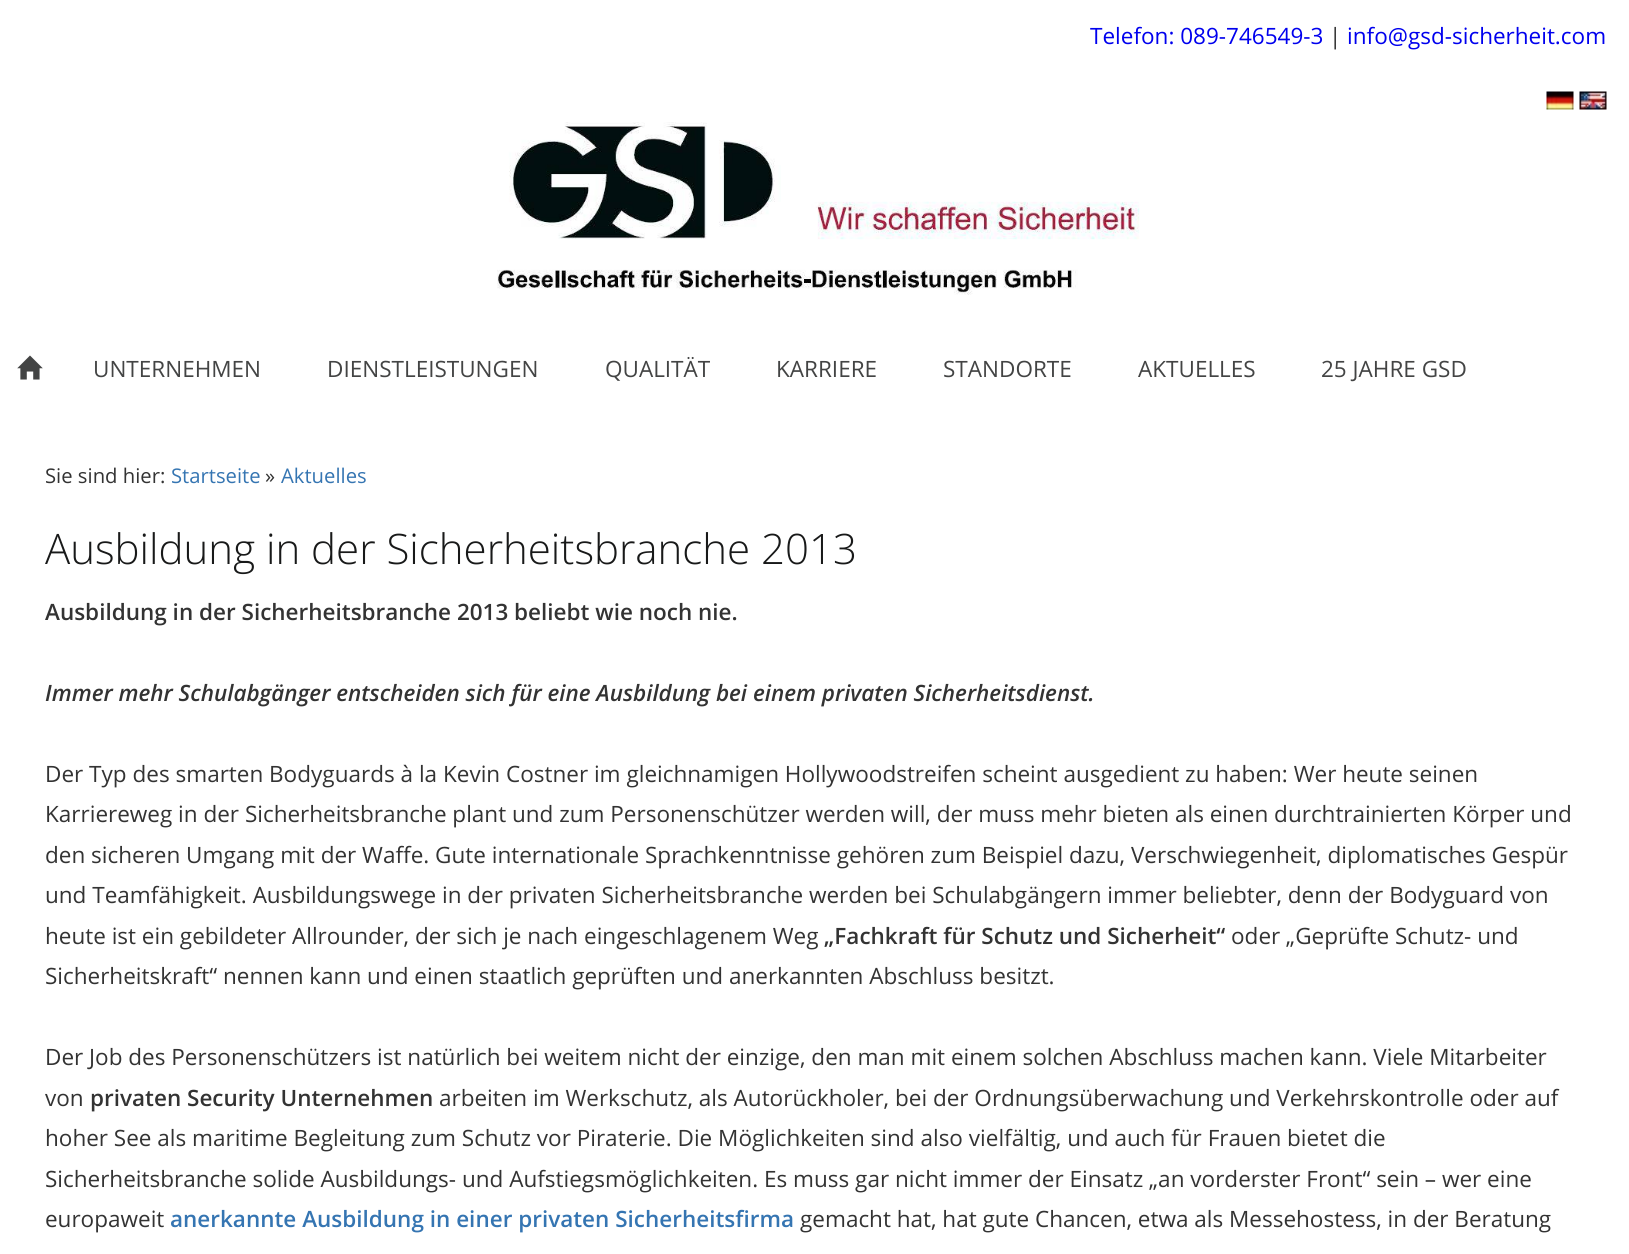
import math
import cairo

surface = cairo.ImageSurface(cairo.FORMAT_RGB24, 1629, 1254)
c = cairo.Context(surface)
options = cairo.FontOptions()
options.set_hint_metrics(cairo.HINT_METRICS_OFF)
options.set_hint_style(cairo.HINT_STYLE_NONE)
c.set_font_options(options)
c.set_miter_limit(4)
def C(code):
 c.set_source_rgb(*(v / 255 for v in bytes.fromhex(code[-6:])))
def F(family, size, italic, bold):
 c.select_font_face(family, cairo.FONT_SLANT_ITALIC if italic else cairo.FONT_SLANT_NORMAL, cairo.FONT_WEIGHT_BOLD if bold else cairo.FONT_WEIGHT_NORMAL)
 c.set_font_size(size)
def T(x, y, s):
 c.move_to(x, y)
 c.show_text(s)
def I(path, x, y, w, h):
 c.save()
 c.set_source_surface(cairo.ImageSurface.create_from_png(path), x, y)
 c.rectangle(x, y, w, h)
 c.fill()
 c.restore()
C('ffffff')
c.paint()
F('Open Sans',22.5,0,0)
C('0000ee')
T(1090,44,'Telefon: 089-746549-3')
C('333333')
T(1329,44,'|')
C('0000ee')
T(1347,44,'info@gsd-sicherheit.com')
I('1.png',1546,91,28,19)
I('2.png',1579,91,28,19)
I('3.png',497,122,643,173)
I('4.png',17,355,26,25)
C('434444')
T(93,377,'UNTERNEHMEN')
T(327,377,'DIENSTLEISTUNGEN')
T(605,377,'QUALITÄT')
T(776,377,'KARRIERE')
T(943,377,'STANDORTE')
T(1138,377,'AKTUELLES')
T(1321,377,'25 JAHRE GSD')
F('Open Sans',20.25,0,0)
C('333333')
T(45,483,'Sie sind hier:')
C('3575b2')
T(171,483,'Startseite')
C('333333')
T(265,483,'»')
C('3575b2')
T(281,483,'Aktuelles')
F('Open Sans Light',42,0,0)
C('181919')
T(45,564,'Ausbildung in der Sicherheitsbranche 2013')
F('Open Sans SemiBold',22.5,0,0)
C('333333')
T(45,620,'Ausbildung in der Sicherheitsbranche 2013 beliebt wie noch nie.')
F('Open Sans SemiBold',22.5,1,0)
T(45,701,'Immer mehr Schulabgänger entscheiden sich für eine Ausbildung bei einem privaten Sicherheitsdienst.')
F('Open Sans',22.5,0,0)
T(45,782,'Der Typ des smarten Bodyguards à la Kevin Costner im gleichnamigen Hollywoodstreifen scheint ausgedient zu haben: Wer heute seinen')
T(45,822,'Karriereweg in der Sicherheitsbranche plant und zum Personenschützer werden will, der muss mehr bieten als einen durchtrainierten Körper und')
T(45,863,'den sicheren Umgang mit der Waffe. Gute internationale Sprachkenntnisse gehören zum Beispiel dazu, Verschwiegenheit, diplomatisches Gespür')
T(45,903,'und Teamfähigkeit. Ausbildungswege in der privaten Sicherheitsbranche werden bei Schulabgängern immer beliebter, denn der Bodyguard von')
T(45,944,'heute ist ein gebildeter Allrounder, der sich je nach eingeschlagenem Weg')
F('Open Sans SemiBold',22.5,0,0)
T(824,944,'„Fachkraft für Schutz und Sicherheit“')
F('Open Sans',22.5,0,0)
T(1231,944,'oder „Geprüfte Schutz- und')
T(45,984,'Sicherheitskraft“ nennen kann und einen staatlich geprüften und anerkannten Abschluss besitzt.')
T(45,1065,'Der Job des Personenschützers ist natürlich bei weitem nicht der einzige, den man mit einem solchen Abschluss machen kann. Viele Mitarbeiter')
T(45,1106,'von')
F('Open Sans SemiBold',22.5,0,0)
T(90,1106,'privaten Security Unternehmen')
F('Open Sans',22.5,0,0)
T(439,1106,'arbeiten im Werkschutz, als Autorückholer, bei der Ordnungsüberwachung und Verkehrskontrolle oder auf')
T(45,1146,'hoher See als maritime Begleitung zum Schutz vor Piraterie. Die Möglichkeiten sind also vielfältig, und auch für Frauen bietet die')
T(45,1187,'Sicherheitsbranche solide Ausbildungs- und Aufstiegsmöglichkeiten. Es muss gar nicht immer der Einsatz „an vorderster Front“ sein – wer eine')
T(45,1227,'europaweit')
F('Open Sans SemiBold',22.5,0,0)
C('3575b2')
T(170,1227,'anerkannte Ausbildung in einer privaten Sicherheitsfirma')
F('Open Sans',22.5,0,0)
C('333333')
T(800,1227,'gemacht hat, hat gute Chancen, etwa als Messehostess, in der Beratung')
surface.write_to_png('o.png')
